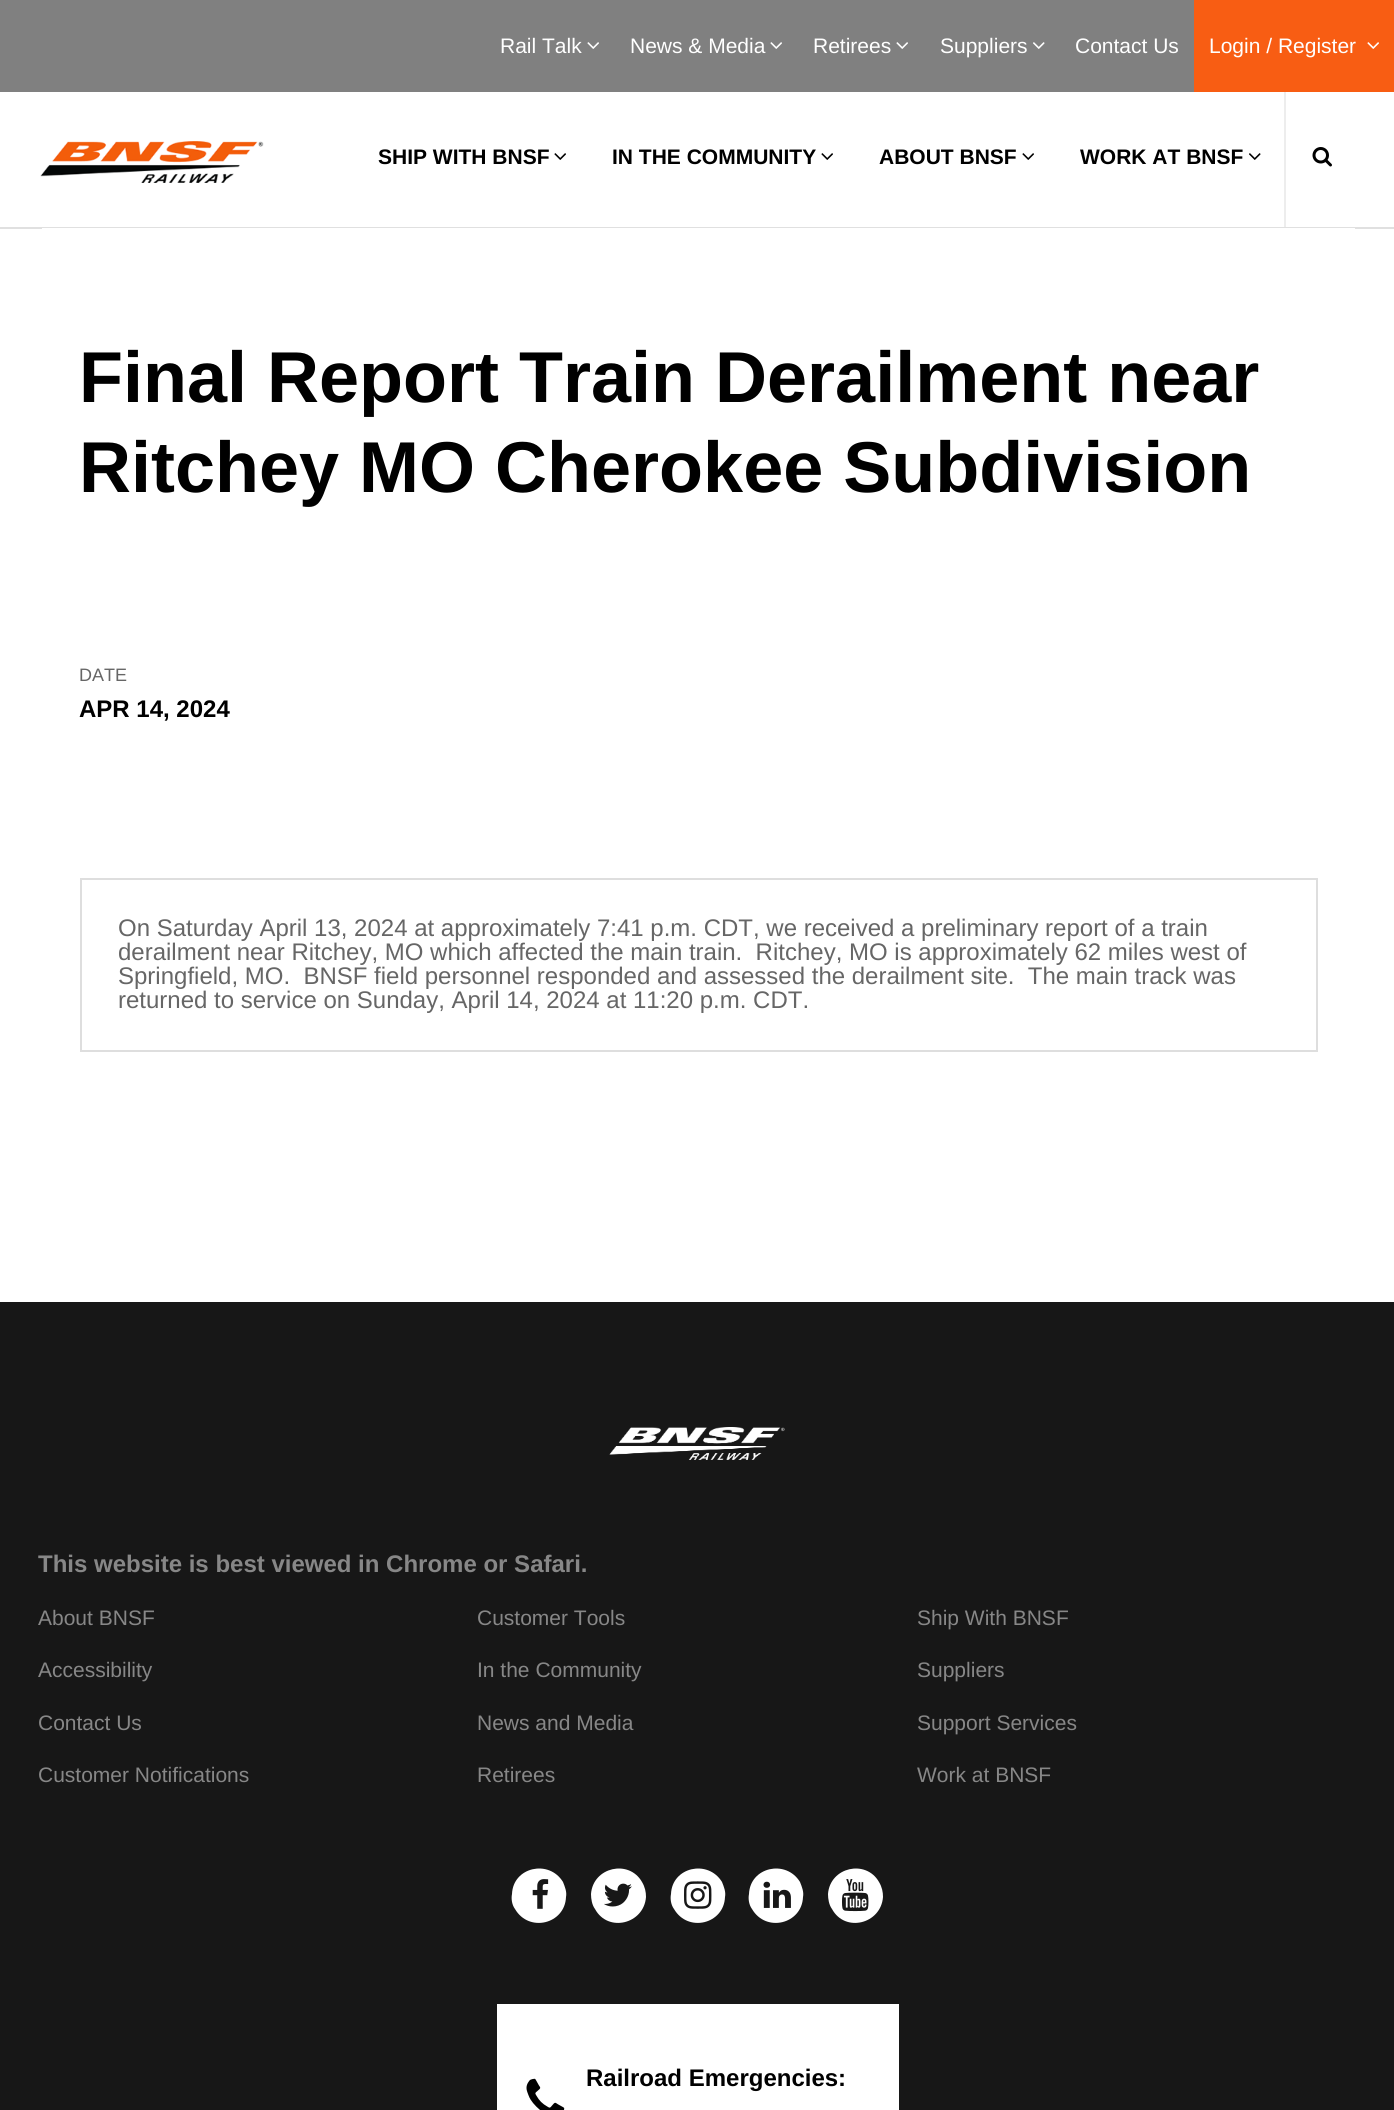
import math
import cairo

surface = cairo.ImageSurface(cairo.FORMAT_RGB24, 1394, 2110)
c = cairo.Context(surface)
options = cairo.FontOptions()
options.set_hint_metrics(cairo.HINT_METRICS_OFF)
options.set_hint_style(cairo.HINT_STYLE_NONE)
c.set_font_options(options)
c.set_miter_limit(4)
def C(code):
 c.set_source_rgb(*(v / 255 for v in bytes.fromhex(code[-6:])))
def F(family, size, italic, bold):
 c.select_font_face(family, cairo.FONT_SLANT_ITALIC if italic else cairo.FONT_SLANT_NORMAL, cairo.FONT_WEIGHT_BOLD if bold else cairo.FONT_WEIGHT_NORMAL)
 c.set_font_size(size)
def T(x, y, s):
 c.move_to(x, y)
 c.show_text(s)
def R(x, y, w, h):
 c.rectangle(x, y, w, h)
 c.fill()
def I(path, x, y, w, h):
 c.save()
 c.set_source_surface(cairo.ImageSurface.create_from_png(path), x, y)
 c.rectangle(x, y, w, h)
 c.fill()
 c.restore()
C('ffffff')
c.paint()
C('808080')
R(0,0,1194,92)
C('e0e0e0')
R(0,227,1394,2)
F('Liberation Sans',21,0,0)
C('ffffff')
T(500,53,'Rail Talk')
I('1.png',587,42,12,7)
T(630,53,'News & Media')
I('1.png',770,42,12,7)
T(813,53,'Retirees')
I('1.png',896,42,12,7)
T(940,53,'Suppliers')
I('2.png',1033,42,12,7)
T(1075,53,'Contact Us')
C('f85d13')
R(1194,0,200,92)
C('ffffff')
T(1209,53,'Login / Register')
I('3.png',1367,42,12,7)
I('4.png',40,141,224,42)
F('Liberation Sans',21,0,1)
C('000000')
T(378,164,'SHIP WITH BNSF')
I('5.png',554,153,12,7)
T(612,164,'IN THE COMMUNITY')
I('5.png',821,153,12,7)
T(879,164,'ABOUT BNSF')
I('5.png',1022,153,12,7)
T(1080,164,'WORK AT BNSF')
I('6.png',1249,153,12,7)
C('ededed')
R(1284,92,2,135)
I('7.png',1312,147,20,20)
C('ffffff')
R(42,228,1313,1)
F('Liberation Sans',72,0,1)
C('000000')
T(79,402,'Final Report Train Derailment near')
T(79,492,'Ritchey MO Cherokee Subdivision')
F('Liberation Sans',18,0,0)
C('666666')
T(79,681,'DATE')
F('Liberation Sans',24,0,1)
C('000000')
T(79,717,'APR 14, 2024')
C('dedede')
R(80,878,1237,2)
R(1316,878,2,174)
R(80,1050,1237,2)
R(80,878,2,174)
F('Liberation Sans',24,0,0)
C('666666')
T(118,936,'On Saturday April 13, 2024 at approximately 7:41 p.m. CDT, we received a preliminary report of a train')
T(118,960,'derailment near Ritchey, MO which affected the main train.  Ritchey, MO is approximately 62 miles west of')
T(118,984,'Springfield, MO.  BNSF field personnel responded and assessed the derailment site.  The main track was')
T(118,1008,'returned to service on Sunday, April 14, 2024 at 11:20 p.m. CDT.')
C('171717')
R(0,1302,1394,808)
I('8.png',609,1427,176,33)
F('Liberation Sans',24,0,1)
C('878787')
T(38,1572,'This website is best viewed in Chrome or Safari.')
F('Liberation Sans',21,0,0)
T(38,1625,'About BNSF')
T(38,1677,'Accessibility')
T(38,1730,'Contact Us')
T(38,1782,'Customer Notifications')
T(477,1625,'Customer Tools')
T(477,1677,'In the Community')
T(477,1730,'News and Media')
T(477,1782,'Retirees')
T(917,1625,'Ship With BNSF')
T(917,1677,'Suppliers')
T(917,1730,'Support Services')
T(917,1782,'Work at BNSF')
C('ffffff')
c.new_path()
c.move_to(563,1882)
c.curve_to(565,1887,567,1892,566,1897)
c.curve_to(565,1924,529,1933,515,1909)
c.curve_to(512,1905,511,1899,512,1894)
c.curve_to(513,1867,549,1859,563,1882)
c.close_path()
c.fill()
I('9.png',532,1879,17,30)
c.new_path()
c.move_to(642,1882)
c.curve_to(645,1887,646,1892,646,1897)
c.curve_to(644,1924,608,1933,595,1909)
c.curve_to(592,1905,591,1899,591,1894)
c.curve_to(593,1867,629,1859,642,1882)
c.close_path()
c.fill()
I('10.png',604,1883,28,24)
c.new_path()
c.move_to(722,1882)
c.curve_to(724,1887,726,1892,725,1897)
c.curve_to(724,1924,688,1933,674,1909)
c.curve_to(671,1905,670,1899,671,1894)
c.curve_to(672,1867,708,1859,722,1882)
c.close_path()
c.fill()
I('11.png',684,1881,28,28)
c.new_path()
c.move_to(800,1882)
c.curve_to(802,1887,804,1892,803,1897)
c.curve_to(802,1924,766,1933,752,1909)
c.curve_to(749,1905,748,1899,749,1894)
c.curve_to(750,1867,786,1859,800,1882)
c.close_path()
c.fill()
I('12.png',763,1881,28,27)
c.new_path()
c.move_to(879,1882)
c.curve_to(882,1887,883,1892,883,1897)
c.curve_to(881,1924,845,1933,832,1909)
c.curve_to(829,1905,828,1899,828,1894)
c.curve_to(830,1867,866,1859,879,1882)
c.close_path()
c.fill()
I('13.png',842,1879,27,33)
R(497,2004,402,106)
I('14.png',526,2078,39,32)
F('Liberation Sans',24,0,1)
C('000000')
T(586,2086,'Railroad Emergencies:')
surface.write_to_png('o.png')
